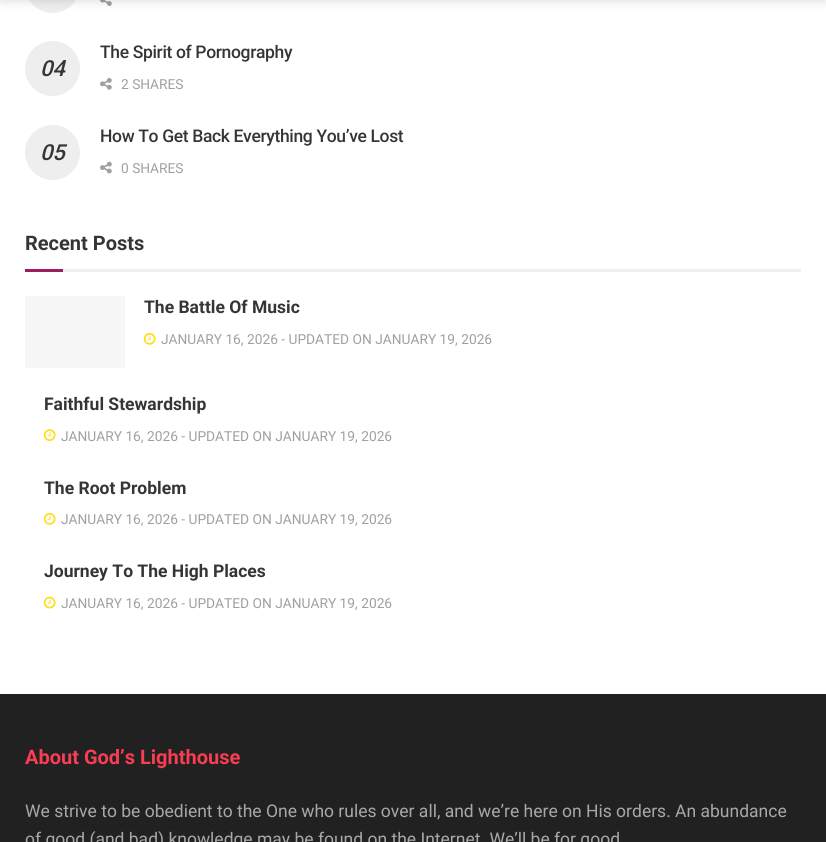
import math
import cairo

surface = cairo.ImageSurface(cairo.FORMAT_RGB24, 826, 842)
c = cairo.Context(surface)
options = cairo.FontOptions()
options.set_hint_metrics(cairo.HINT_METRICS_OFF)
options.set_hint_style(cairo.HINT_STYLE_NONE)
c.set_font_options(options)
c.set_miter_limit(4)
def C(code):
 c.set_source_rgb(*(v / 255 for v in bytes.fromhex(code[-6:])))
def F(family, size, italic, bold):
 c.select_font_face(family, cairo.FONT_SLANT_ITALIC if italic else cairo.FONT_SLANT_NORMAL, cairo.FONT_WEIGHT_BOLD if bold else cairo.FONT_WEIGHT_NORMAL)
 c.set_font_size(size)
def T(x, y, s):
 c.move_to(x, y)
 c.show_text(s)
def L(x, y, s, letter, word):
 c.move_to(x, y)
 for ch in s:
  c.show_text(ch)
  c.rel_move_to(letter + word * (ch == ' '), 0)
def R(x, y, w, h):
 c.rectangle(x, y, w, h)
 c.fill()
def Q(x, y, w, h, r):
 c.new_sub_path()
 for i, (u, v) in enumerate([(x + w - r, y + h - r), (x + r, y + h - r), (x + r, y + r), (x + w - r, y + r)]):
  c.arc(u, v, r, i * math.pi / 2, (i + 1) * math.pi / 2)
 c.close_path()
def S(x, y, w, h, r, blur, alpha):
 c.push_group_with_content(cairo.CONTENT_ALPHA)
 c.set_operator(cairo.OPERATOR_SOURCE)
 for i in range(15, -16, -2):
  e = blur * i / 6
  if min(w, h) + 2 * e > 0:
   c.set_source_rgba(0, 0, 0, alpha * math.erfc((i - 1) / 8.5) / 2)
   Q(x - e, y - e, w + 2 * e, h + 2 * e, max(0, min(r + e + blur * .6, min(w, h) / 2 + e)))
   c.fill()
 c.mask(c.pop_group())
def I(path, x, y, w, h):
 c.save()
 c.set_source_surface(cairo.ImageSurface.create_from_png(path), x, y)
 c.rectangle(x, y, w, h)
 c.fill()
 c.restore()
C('ffffff')
c.paint()
C('eeeeee')
Q(25,-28,55,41,27.5)
c.fill()
I('1.png',100,0,12,6)
C('000000')
S(0,-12,826,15,0,4,.1)
F('Roboto Medium',17.5,0,0)
C('353535')
L(100,58,'The Spirit of Pornography',-.35,0)
C('eeeeee')
c.new_path()
c.arc(52.5,68.5,27.5,0,2 * math.pi)
c.fill()
F('Roboto Medium',22,1,0)
C('353535')
L(40,76,'04',-.35,0)
I('2.png',100,78,12,12)
F('Roboto',13.75,0,0)
C('a0a0a0')
T(121,89,'2 SHARES')
F('Roboto Medium',17.5,0,0)
C('353535')
L(100,142,'How To Get Back Everything You’ve Lost',-.35,0)
C('eeeeee')
c.new_path()
c.arc(52.5,152.5,27.5,0,2 * math.pi)
c.fill()
F('Roboto Medium',22,1,0)
C('353535')
L(40,160,'05',-.35,0)
I('3.png',100,161,12,13)
F('Roboto',13.75,0,0)
C('a0a0a0')
T(121,173,'0 SHARES')
C('eeeeee')
R(63,269,738,3)
F('Roboto',20,0,1)
C('353535')
T(25,250,'Recent Posts')
C('9c1e5f')
R(25,269,38,3)
C('f7f7f7')
R(25,296,100,72)
F('Roboto',17.5,0,1)
C('353535')
T(144,313,'The Battle Of Music')
I('4.png',143,332,13,13)
F('Roboto',13.75,0,0)
C('a0a0a0')
T(161,344,'JANUARY 16, 2026 - UPDATED ON JANUARY 19, 2026')
F('Roboto',17.5,0,1)
C('353535')
T(44,410,'Faithful Stewardship')
I('5.png',43,429,13,12)
F('Roboto',13.75,0,0)
C('a0a0a0')
T(61,441,'JANUARY 16, 2026 - UPDATED ON JANUARY 19, 2026')
F('Roboto',17.5,0,1)
C('353535')
T(44,494,'The Root Problem')
I('4.png',43,512,13,13)
F('Roboto',13.75,0,0)
C('a0a0a0')
T(61,524,'JANUARY 16, 2026 - UPDATED ON JANUARY 19, 2026')
F('Roboto',17.5,0,1)
C('353535')
T(44,577,'Journey To The High Places')
I('6.png',43,596,13,13)
F('Roboto',13.75,0,0)
C('a0a0a0')
T(61,608,'JANUARY 16, 2026 - UPDATED ON JANUARY 19, 2026')
C('212121')
R(0,694,826,148)
F('Roboto',20,0,1)
C('f93d53')
T(25,764,'About God’s Lighthouse')
F('Roboto',17.5,0,0)
C('a8a8aa')
T(25,817,'We strive to be obedient to the One who rules over all, and we’re here on His orders. An abundance')
T(25,845,'of good (and bad) knowledge may be found on the Internet. We’ll be for good')
surface.write_to_png('o.png')
